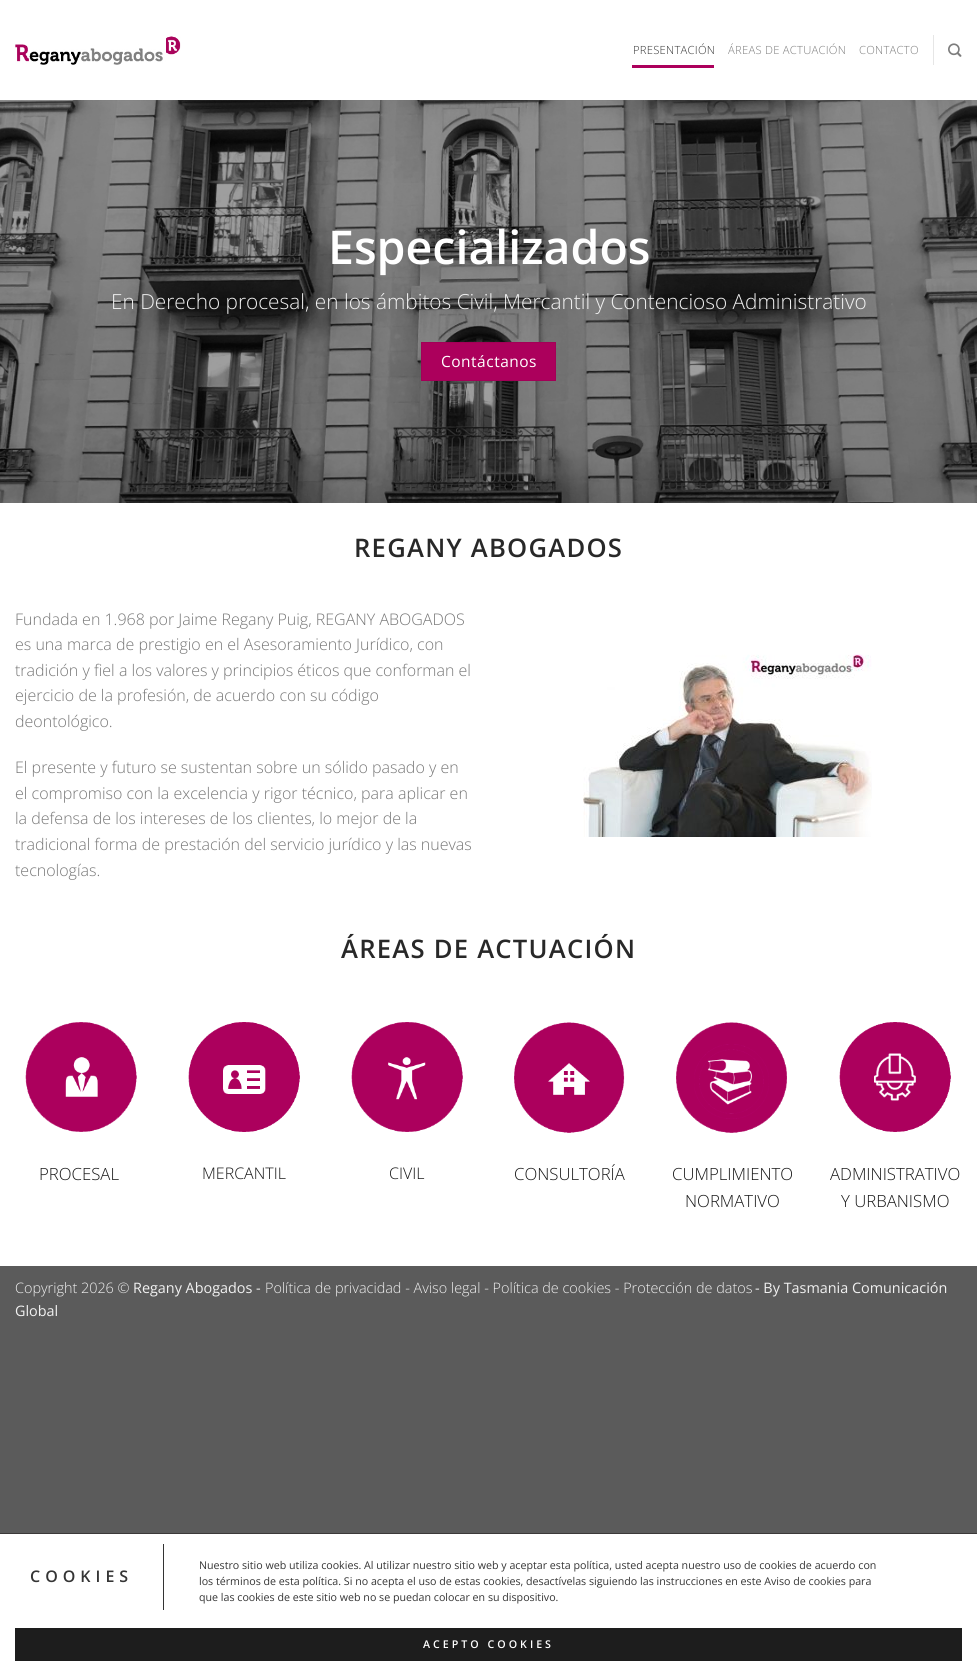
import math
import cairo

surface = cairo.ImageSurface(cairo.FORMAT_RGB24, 977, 1671)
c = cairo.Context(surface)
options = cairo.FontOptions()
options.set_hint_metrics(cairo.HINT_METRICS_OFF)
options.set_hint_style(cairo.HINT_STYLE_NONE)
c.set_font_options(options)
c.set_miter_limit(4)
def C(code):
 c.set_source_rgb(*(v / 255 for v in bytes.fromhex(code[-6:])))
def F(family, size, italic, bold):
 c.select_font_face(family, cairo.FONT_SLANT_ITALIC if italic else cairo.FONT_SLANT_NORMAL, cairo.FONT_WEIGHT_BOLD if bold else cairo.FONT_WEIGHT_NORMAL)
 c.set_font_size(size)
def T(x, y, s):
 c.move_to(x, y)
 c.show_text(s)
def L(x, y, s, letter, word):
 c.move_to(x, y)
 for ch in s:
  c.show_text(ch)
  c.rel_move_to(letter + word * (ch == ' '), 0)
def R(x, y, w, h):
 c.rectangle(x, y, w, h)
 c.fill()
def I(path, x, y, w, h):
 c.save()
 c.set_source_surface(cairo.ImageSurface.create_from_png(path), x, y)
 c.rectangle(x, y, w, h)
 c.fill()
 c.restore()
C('5b5b5b')
c.paint()
C('ffffff')
R(0,0,977,1266)
I('1.png',15,36,166,29)
F('Open Sans Light',11.25,0,0)
C('353535')
L(633,54,'PRESENTACIÓN',.25,0)
C('ac005c')
R(632,65,82,3)
C('7d7d7d')
L(728,54,'ÁREAS DE ACTUACIÓN',.25,0)
L(859,54,'CONTACTO',.25,0)
C('e6e6e6')
R(933,35,1,30)
I('2.png',948,43,14,14)
I('3.png',0,100,977,403)
c.set_source_rgba(0.467,0.467,0.467,0.1)
R(74,100,787,1)
F('Open Sans SemiBold',46.5,0,0)
C('ffffff')
T(328,264,'Especializados')
F('Open Sans Light',20.8,0,0)
C('f1f1f1')
T(111,309,'En Derecho procesal, en los ámbitos Civil, Mercantil y Contencioso Administrativo')
C('ac005c')
c.rectangle(421.5,342.5,134,38)
c.fill_preserve()
C('a30057')
c.set_line_width(1)
c.stroke()
F('Open Sans',15.5,0,0)
C('ffffff')
L(441,367,'Contáctanos',.5,0)
F('Open Sans SemiBold',25.6,0,0)
C('282828')
L(354,557,'REGANY ABOGADOS',1.25,0)
F('Open Sans Light',16,0,0)
C('777777')
T(15,625,'Fundada en 1.968 por Jaime Regany Puig, REGANY ABOGADOS')
T(15,650,'es una marca de prestigio en el Asesoramiento Jurídico, con')
T(15,676,'tradición y fiel a los valores y principios éticos que conforman el')
T(15,701,'ejercicio de la profesión, de acuerdo con su código')
T(15,727,'deontológico.')
T(15,773,'El presente y futuro se sustentan sobre un sólido pasado y en')
T(15,799,'el compromiso con la excelencia y rigor técnico, para aplicar en')
T(15,824,'la defensa de los intereses de los clientes, lo mejor de la')
T(15,850,'tradicional forma de prestación del servicio jurídico y las nuevas')
T(15,876,'tecnologías.')
I('4.png',583,654,289,183)
F('Open Sans SemiBold',25.6,0,0)
C('282828')
L(341,958,'ÁREAS DE ACTUACIÓN',1.25,0)
I('5.png',25,1022,112,110)
F('Open Sans Light',16.75,0,0)
C('161616')
T(39,1180,'PROCESAL')
I('6.png',188,1022,112,110)
F('Open Sans Light',16,0,0)
T(202,1179,'MERCANTIL')
I('7.png',351,1022,112,110)
T(389,1179,'CIVIL')
I('8.png',514,1022,111,111)
F('Open Sans Light',16.75,0,0)
T(514,1180,'CONSULTORÍA')
I('9.png',676,1022,111,111)
T(672,1180,'CUMPLIMIENTO')
T(685,1207,'NORMATIVO')
I('10.png',839,1022,112,110)
T(830,1180,'ADMINISTRATIVO')
T(841,1207,'Y URBANISMO')
F('Open Sans Light',14.4,0,0)
C('f1f1f1')
T(15,1293,'Copyright 2026 ©')
F('Open Sans',14.4,0,0)
T(133,1293,'Regany Abogados -')
F('Open Sans Light',14.4,0,0)
T(265,1293,'Política de privacidad - Aviso legal - Política de cookies - Protección de datos')
F('Open Sans',14.4,0,0)
T(755,1293,'- By Tasmania Comunicación')
T(15,1316,'Global')
C('ffffff')
R(0,1534,977,137)
C('3b3939')
R(0,1533,977,1)
C('333333')
R(163,1544,1,66)
F('Open Sans SemiBold',16,0,0)
C('353535')
L(30,1582,'COOKIES',5,0)
F('Open Sans',10.67,0,0)
T(199,1569,'Nuestro sitio web utiliza cookies. Al utilizar nuestro sitio web y aceptar esta política, usted acepta nuestro uso de cookies de acuerdo con')
T(199,1585,'los términos de esta política. Si no acepta el uso de estas cookies, desactívelas siguiendo las instrucciones en este Aviso de cookies para')
T(199,1601,'que las cookies de este sitio web no se puedan colocar en su dispositivo.')
C('1d1d1d')
R(15,1628,947,33)
F('Open Sans SemiBold',10.67,0,0)
C('ffffff')
L(423,1648,'ACEPTO COOKIES',3,0)
surface.write_to_png('o.png')
